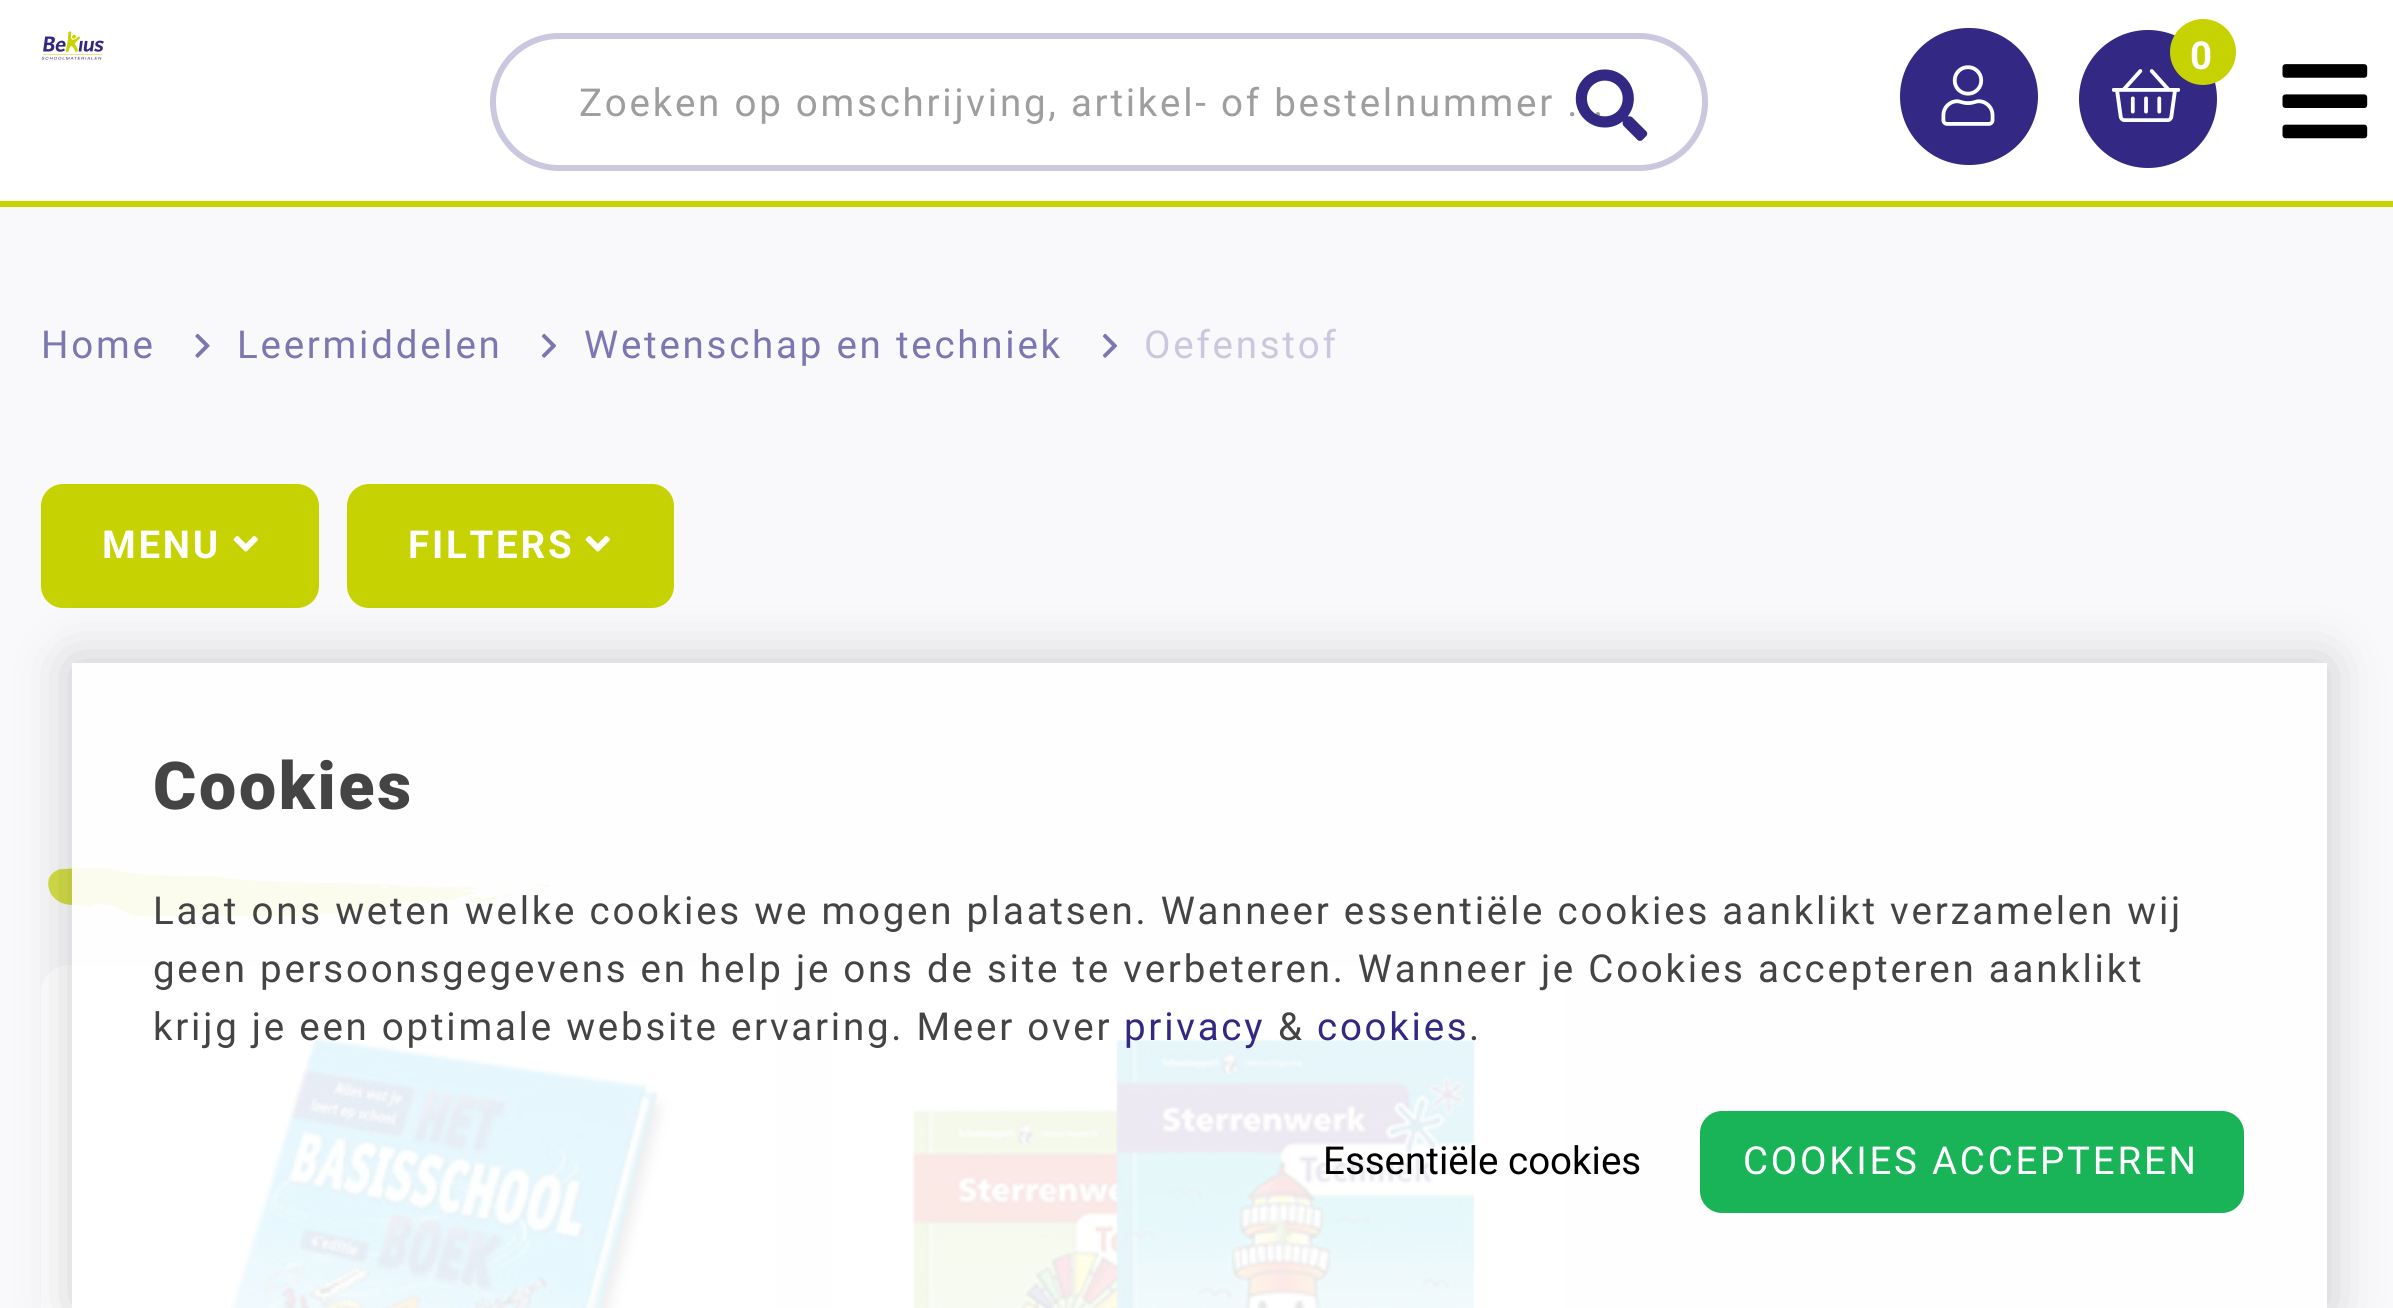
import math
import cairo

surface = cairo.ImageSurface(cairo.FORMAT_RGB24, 2393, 1308)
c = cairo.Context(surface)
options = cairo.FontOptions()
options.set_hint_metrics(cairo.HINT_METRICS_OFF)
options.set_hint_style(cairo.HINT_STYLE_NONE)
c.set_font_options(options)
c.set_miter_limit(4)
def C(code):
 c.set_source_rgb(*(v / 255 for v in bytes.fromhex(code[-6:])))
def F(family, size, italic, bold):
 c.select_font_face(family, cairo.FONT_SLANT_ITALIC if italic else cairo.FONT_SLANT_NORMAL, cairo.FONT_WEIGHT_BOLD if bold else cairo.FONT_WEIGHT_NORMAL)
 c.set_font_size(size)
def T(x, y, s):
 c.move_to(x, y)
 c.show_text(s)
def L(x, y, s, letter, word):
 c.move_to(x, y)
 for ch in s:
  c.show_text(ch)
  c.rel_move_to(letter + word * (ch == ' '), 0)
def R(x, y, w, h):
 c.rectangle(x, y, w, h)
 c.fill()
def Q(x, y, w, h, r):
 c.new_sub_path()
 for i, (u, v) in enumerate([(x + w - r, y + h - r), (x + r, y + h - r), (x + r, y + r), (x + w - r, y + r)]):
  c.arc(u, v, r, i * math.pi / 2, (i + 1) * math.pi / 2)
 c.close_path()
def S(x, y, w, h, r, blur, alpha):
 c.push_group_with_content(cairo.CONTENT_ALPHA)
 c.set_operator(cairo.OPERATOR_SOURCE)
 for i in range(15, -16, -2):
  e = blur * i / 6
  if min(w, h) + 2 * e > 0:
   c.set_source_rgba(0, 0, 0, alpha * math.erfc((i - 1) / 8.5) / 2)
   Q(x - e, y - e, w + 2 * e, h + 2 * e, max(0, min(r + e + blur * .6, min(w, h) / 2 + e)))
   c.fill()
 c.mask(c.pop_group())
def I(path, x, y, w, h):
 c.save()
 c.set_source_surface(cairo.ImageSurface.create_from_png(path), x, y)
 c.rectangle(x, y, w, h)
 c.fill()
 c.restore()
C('f9f8fb')
c.paint()
C('ffffff')
R(0,0,2393,201)
C('c6d202')
R(0,201,2393,6)
I('1.png',41,31,63,29)
C('332883')
Q(1900,28,138,137,68.5)
c.fill()
I('2.png',1941,65,54,61)
c.arc(2148,99,69,0,2 * math.pi)
c.fill()
I('3.png',2112,69,69,53)
C('c6d202')
c.arc(2203,52,33,0,2 * math.pi)
c.fill()
F('Roboto',38.5,0,1)
C('ffffff')
L(2190,69,'0',2.75,0)
Q(493,36,1212,132,66)
C('cac8df')
c.set_line_width(6)
c.stroke()
c.save()
c.rectangle(578,80,1042,44)
c.clip()
F('Roboto',38.5,0,0)
C('9e9e9e')
L(579,116,'Zoeken op omschrijving, artikel- of bestelnummer ...',2.75,0)
c.restore()
I('4.png',1575,69,73,72)
I('5.png',2282,64,86,75)
F('Roboto',38.5,0,0)
C('7c77b0')
L(41,358,'Home',2.75,0)
I('6.png',195,333,15,25)
L(237,358,'Leermiddelen',2.75,0)
I('7.png',541,333,16,25)
L(584,358,'Wetenschap en techniek',2.75,0)
I('7.png',1102,333,16,25)
C('cac8df')
L(1144,358,'Oefenstof',2.75,0)
C('c6d202')
Q(44,487,272,118,19)
c.fill_preserve()
c.stroke()
F('Roboto',38.5,0,1)
C('ffffff')
L(102,558,'MENU',2.75,0)
I('8.png',233,536,25,16)
C('c6d202')
Q(350,487,321,118,19)
c.fill_preserve()
c.stroke()
C('ffffff')
L(408,558,'FILTERS',2.75,0)
I('8.png',585,536,25,16)
I('9.png',48,867,505,49)
Q(41,965,735,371,28)
c.fill()
I('10.png',228,1027,444,281)
Q(831,965,734,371,28)
c.fill()
I('11.png',912,1027,565,281)
c.save()
c.set_fill_rule(cairo.FILL_RULE_EVEN_ODD)
c.new_path()
c.move_to(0,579)
c.line_to(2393,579)
c.line_to(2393,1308)
c.line_to(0,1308)
c.close_path()
c.move_to(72,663)
c.line_to(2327,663)
c.line_to(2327,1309)
c.line_to(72,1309)
c.close_path()
c.clip()
C('000000')
S(72,663,2255,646,0,27.5,.2)
c.restore()
c.set_source_rgba(1,1,1,0.9)
R(72,663,2255,645)
F('Roboto Black',66,0,0)
C('444444')
L(153,809,'Cookies',2.75,0)
F('Roboto',38.5,0,0)
L(153,924,'Laat ons weten welke cookies we mogen plaatsen. Wanneer essentiële cookies aanklikt verzamelen wij',2.75,0)
L(153,982,'geen persoonsgegevens en help je ons de site te verbeteren. Wanneer je Cookies accepteren aanklikt',2.75,0)
L(153,1040,'krijg je een optimale website ervaring. Meer over',2.75,0)
C('332883')
L(1124,1040,'privacy',2.75,0)
C('444444')
L(1278,1040,'&',2.75,0)
C('332883')
L(1317,1040,'cookies',2.75,0)
C('444444')
L(1469,1040,'.',2.75,0)
C('000000')
T(1323,1174,'Essentiële cookies')
C('19b358')
Q(1701.5,1112.5,541,99,20.5)
c.fill_preserve()
c.set_line_width(3)
c.stroke()
C('ffffff')
L(1743,1174,'COOKIES ACCEPTEREN',2.75,0)
surface.write_to_png('o.png')
